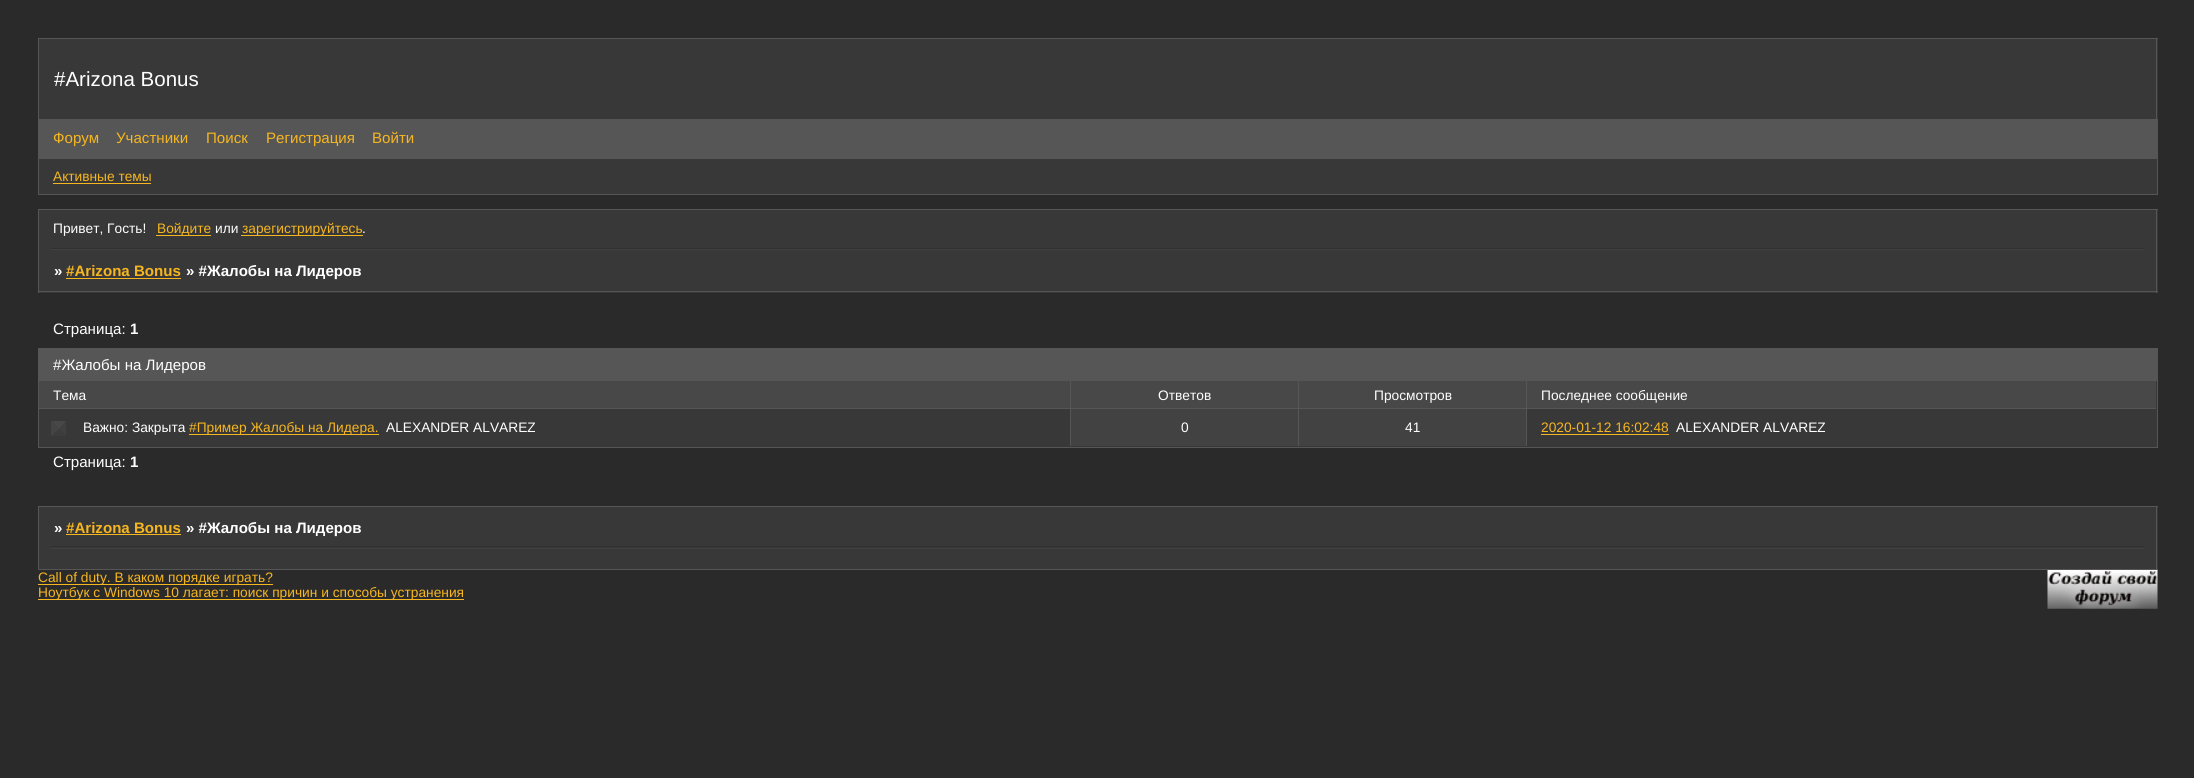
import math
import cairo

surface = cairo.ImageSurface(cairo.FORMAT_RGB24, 2194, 778)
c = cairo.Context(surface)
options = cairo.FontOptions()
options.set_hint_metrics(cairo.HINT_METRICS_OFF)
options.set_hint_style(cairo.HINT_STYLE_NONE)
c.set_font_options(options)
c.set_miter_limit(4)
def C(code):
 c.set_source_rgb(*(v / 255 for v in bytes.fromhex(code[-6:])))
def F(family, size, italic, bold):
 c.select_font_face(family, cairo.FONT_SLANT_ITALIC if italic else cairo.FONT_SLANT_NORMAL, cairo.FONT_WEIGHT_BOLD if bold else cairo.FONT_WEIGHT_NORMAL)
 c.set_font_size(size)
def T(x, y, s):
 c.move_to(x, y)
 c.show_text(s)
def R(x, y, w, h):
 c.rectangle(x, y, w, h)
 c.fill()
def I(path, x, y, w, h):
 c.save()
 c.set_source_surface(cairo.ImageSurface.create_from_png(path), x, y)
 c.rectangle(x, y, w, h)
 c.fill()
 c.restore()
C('2a2a2a')
c.paint()
C('383838')
R(39,39,2119,80)
C('565656')
R(38,38,2120,1)
R(2156,38,1,81)
R(38,38,1,81)
F('Liberation Sans',20.5,0,0)
C('ffffff')
T(54,86,'#Arizona Bonus')
C('565656')
R(38,119,2120,39)
F('Liberation Sans',15.1,0,0)
C('f6b620')
T(53,143,'Форум')
T(116,143,'Участники')
T(206,143,'Поиск')
T(266,143,'Регистрация')
T(372,143,'Войти')
C('383838')
c.rectangle(38.5,158.5,2119,36)
c.fill_preserve()
C('565656')
c.set_line_width(1)
c.stroke()
F('Liberation Sans',13.75,0,0)
C('f6b620')
T(53,181,'Активные темы')
R(53,183,98,1)
C('383838')
R(39,210,2119,38)
C('565656')
R(38,209,2120,1)
R(2156,209,1,41)
R(38,209,1,41)
C('ffffff')
T(53,233,'Привет, Гость!')
C('f6b620')
R(156,235,55,1)
T(157,233,'Войдите')
C('ffffff')
T(215,233,'или')
C('f6b620')
R(241,235,122,1)
T(242,233,'зарегистрируйтесь')
C('ffffff')
T(362,233,'.')
C('383838')
R(39,248,2119,45)
C('303030')
R(51,248,2093,1)
C('404040')
R(51,249,2093,1)
C('565656')
R(2156,248,1,45)
R(38,291,2120,1)
R(38,248,1,45)
F('Liberation Sans',15.1,0,1)
C('ffffff')
T(54,276,'»')
C('f6b620')
T(66,276,'#Arizona Bonus')
R(66,278,115,1)
C('ffffff')
T(186,276,'» #Жалобы на Лидеров')
F('Liberation Sans',15.1,0,0)
T(53,334,'Страница:')
F('Liberation Sans',15.1,0,1)
T(130,334,'1')
C('565656')
R(38,348,2120,32)
F('Liberation Sans',15.1,0,0)
C('ffffff')
T(53,370,'#Жалобы на Лидеров')
C('383838')
c.rectangle(38.5,380.5,2119,67)
c.fill_preserve()
C('565656')
c.stroke()
C('484848')
R(39,381,1031,27)
F('Liberation Sans',13.75,0,0)
C('ffffff')
T(53,400,'Тема')
C('484848')
R(1071,381,227,27)
C('565656')
R(1070,381,1,27)
C('ffffff')
T(1158,400,'Ответов')
C('484848')
R(1299,381,227,27)
C('565656')
R(1298,381,1,27)
C('ffffff')
T(1374,400,'Просмотров')
C('484848')
R(1527,381,629,27)
C('565656')
R(39,408,2117,1)
R(1526,381,1,65)
C('ffffff')
T(1541,400,'Последнее сообщение')
C('484848')
c.new_path()
c.move_to(51,421)
c.line_to(66,421)
c.line_to(59,429)
c.close_path()
c.fill()
C('404040')
c.new_path()
c.move_to(66,421)
c.line_to(66,436)
c.line_to(59,429)
c.close_path()
c.fill()
C('3c3c3c')
c.new_path()
c.move_to(66,436)
c.line_to(51,436)
c.line_to(59,429)
c.close_path()
c.fill()
C('444444')
c.new_path()
c.move_to(51,436)
c.line_to(51,421)
c.line_to(59,429)
c.close_path()
c.fill()
C('ffffff')
T(83,432,'Важно: Закрыта')
C('f6b620')
R(189,434,190,1)
T(189,432,'#Пример Жалобы на Лидера.')
C('ffffff')
T(386,432,'ALEXANDER ALVAREZ')
C('424242')
R(1071,409,227,37)
C('565656')
R(1070,408,1,38)
C('ffffff')
T(1181,432,'0')
C('424242')
R(1299,409,227,37)
C('565656')
R(1298,408,1,38)
C('ffffff')
T(1405,432,'41')
C('f6b620')
T(1541,432,'2020-01-12 16:02:48')
R(1541,434,128,1)
C('ffffff')
T(1676,432,'ALEXANDER ALVAREZ')
F('Liberation Sans',15.1,0,0)
T(53,467,'Страница:')
F('Liberation Sans',15.1,0,1)
T(130,467,'1')
C('383838')
R(39,549,2119,20)
C('565656')
R(2156,546,1,24)
C('383838')
R(39,507,2119,42)
C('565656')
R(38,506,2120,1)
R(2156,506,1,43)
R(38,569,2120,1)
R(38,546,1,24)
R(38,506,1,43)
C('ffffff')
T(54,533,'»')
C('f6b620')
T(66,533,'#Arizona Bonus')
R(66,534,115,1)
C('ffffff')
T(186,533,'» #Жалобы на Лидеров')
C('303030')
R(51,546,2093,1)
C('404040')
R(51,548,2093,1)
C('f6b620')
R(38,584,235,1)
F('Liberation Sans',13.75,0,0)
T(38,582,'Call of duty. В каком порядке играть?')
R(38,599,426,1)
T(38,597,'Ноутбук с Windows 10 лагает: поиск причин и способы устранения')
I('1.png',2047,570,111,39)
surface.write_to_png('o.png')
